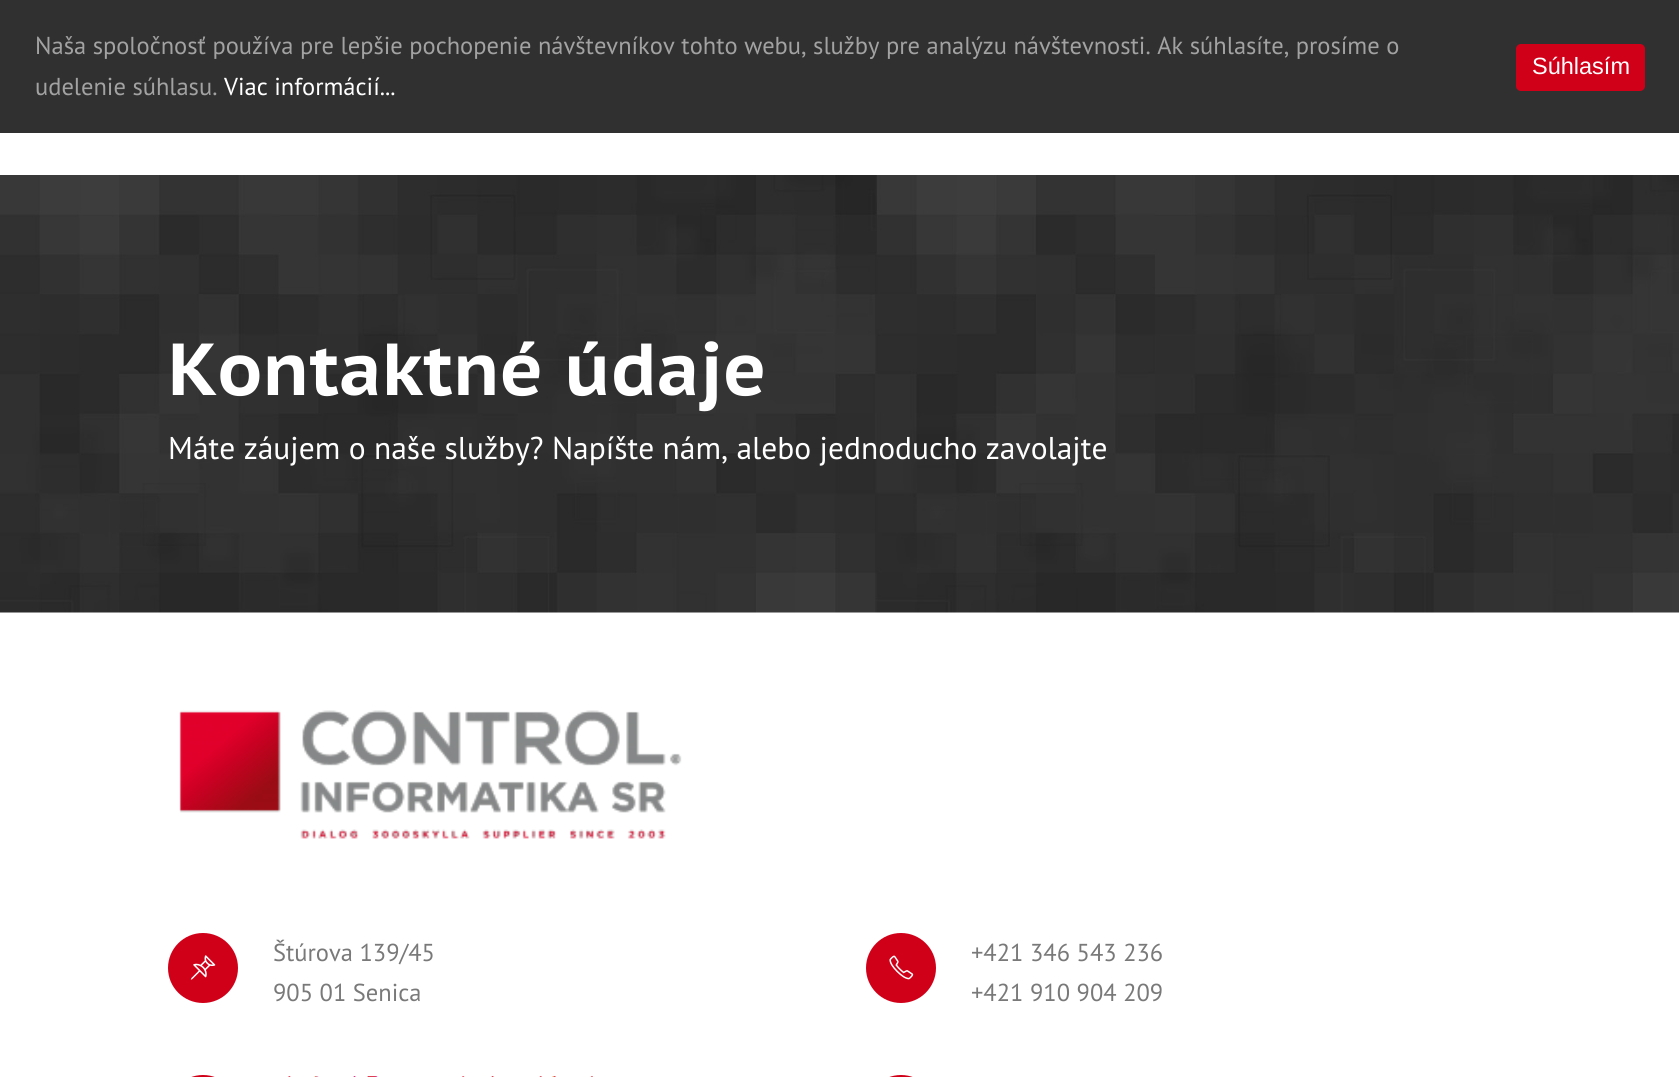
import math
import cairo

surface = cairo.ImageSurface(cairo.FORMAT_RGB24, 1679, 1077)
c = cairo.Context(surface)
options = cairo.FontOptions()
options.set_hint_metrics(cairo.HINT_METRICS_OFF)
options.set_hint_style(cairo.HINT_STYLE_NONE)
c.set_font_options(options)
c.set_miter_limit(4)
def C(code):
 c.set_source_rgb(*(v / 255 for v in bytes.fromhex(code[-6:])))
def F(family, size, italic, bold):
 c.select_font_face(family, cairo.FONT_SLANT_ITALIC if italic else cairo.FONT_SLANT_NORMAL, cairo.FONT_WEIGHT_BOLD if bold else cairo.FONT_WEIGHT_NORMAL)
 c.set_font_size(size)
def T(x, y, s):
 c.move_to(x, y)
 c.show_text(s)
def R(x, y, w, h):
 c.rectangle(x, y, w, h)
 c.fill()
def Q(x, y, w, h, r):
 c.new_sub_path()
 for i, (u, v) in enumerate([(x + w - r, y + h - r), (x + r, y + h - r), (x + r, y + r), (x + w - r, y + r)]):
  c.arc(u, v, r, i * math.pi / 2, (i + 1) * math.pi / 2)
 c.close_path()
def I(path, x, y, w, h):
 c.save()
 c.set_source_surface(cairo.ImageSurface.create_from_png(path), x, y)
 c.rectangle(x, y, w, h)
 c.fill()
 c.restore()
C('ffffff')
c.paint()
C('303030')
R(0,0,1679,133)
F('PT Sans',24.5,0,0)
C('a2a2a2')
T(35,54,'Naša spoločnosť používa pre lepšie pochopenie návštevníkov tohto webu, služby pre analýzu návštevnosti. Ak súhlasíte, prosíme o')
T(35,95,'udelenie súhlasu.')
C('ffffff')
T(224,95,'Viac informácií...')
C('d10019')
Q(1516,44,129,47,5)
c.fill()
F('Liberation Sans',23.5,0,0)
C('ffffff')
T(1532,74,'Súhlasím')
I('1.png',0,175,1679,438)
F('PT Sans Caption',73.5,0,1)
T(168,395,'Kontaktné údaje')
F('PT Sans',31.5,0,0)
T(168,459,'Máte záujem o naše služby? Napíšte nám, alebo jednoducho zavolajte')
I('2.png',179,710,503,129)
C('d10019')
c.arc(203,968,35,0,2 * math.pi)
c.fill()
I('3.png',190,955,26,25)
F('PT Sans',24.5,0,0)
C('797979')
T(273,961,'Štúrova 139/45')
T(273,1001,'905 01 Senica')
C('d10019')
Q(168,1075,70,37,35)
c.fill()
I('4.png',288,1076,305,1)
c.arc(901,968,35,0,2 * math.pi)
c.fill()
I('5.png',889,955,25,25)
C('797979')
T(971,961,'+421 346 543 236')
T(971,1001,'+421 910 904 209')
C('d10019')
Q(866,1075,70,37,35)
c.fill()
surface.write_to_png('o.png')
